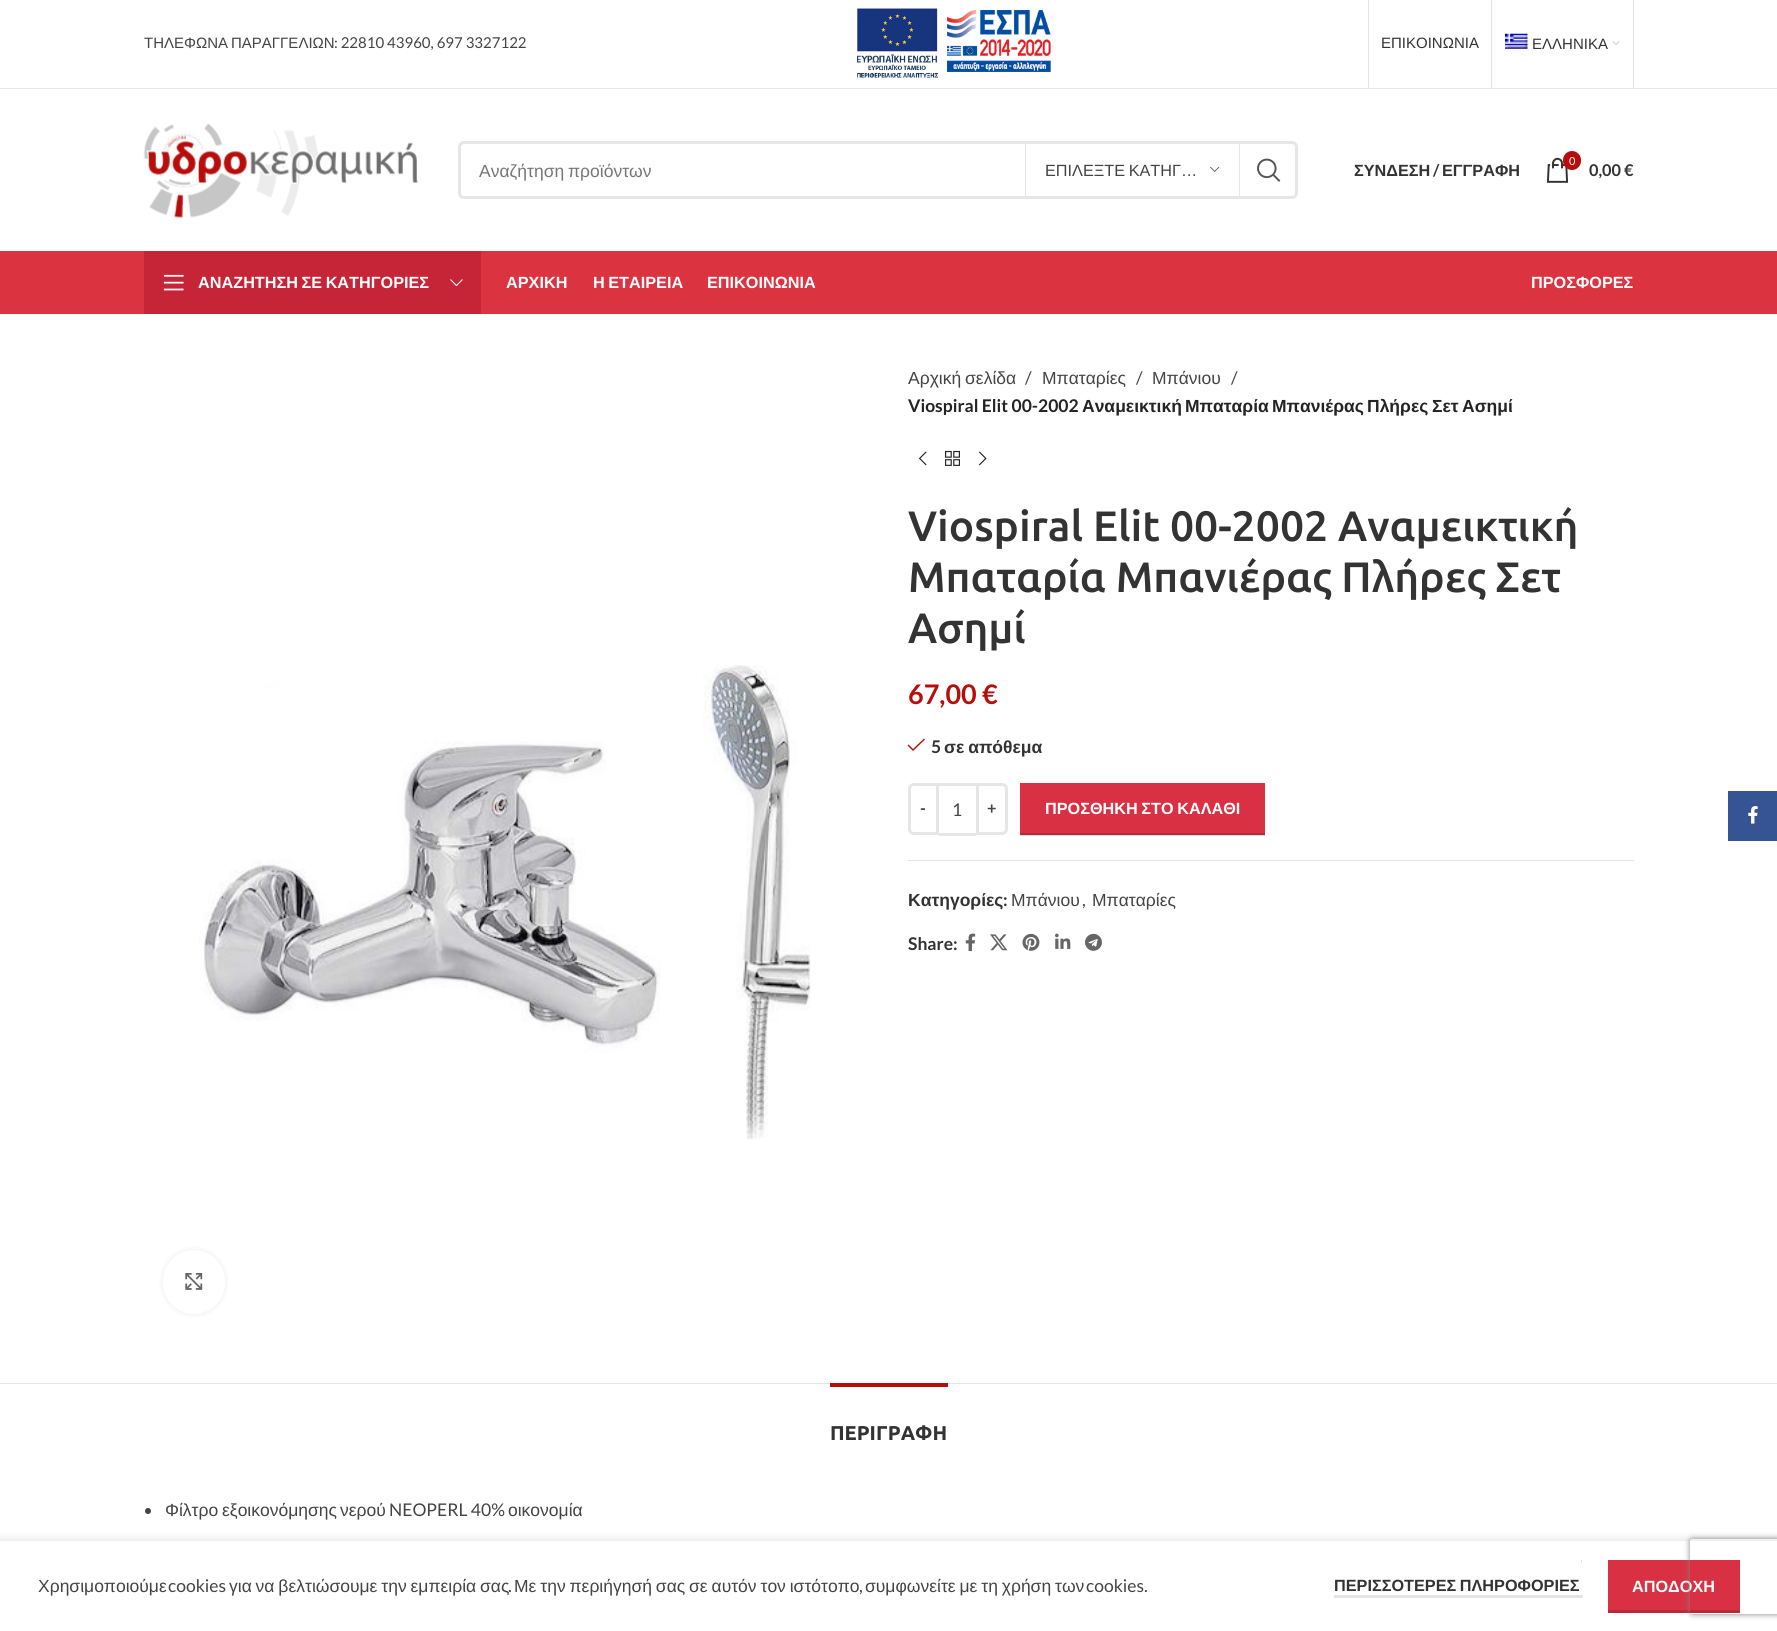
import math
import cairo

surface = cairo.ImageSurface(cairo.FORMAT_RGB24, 1777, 1631)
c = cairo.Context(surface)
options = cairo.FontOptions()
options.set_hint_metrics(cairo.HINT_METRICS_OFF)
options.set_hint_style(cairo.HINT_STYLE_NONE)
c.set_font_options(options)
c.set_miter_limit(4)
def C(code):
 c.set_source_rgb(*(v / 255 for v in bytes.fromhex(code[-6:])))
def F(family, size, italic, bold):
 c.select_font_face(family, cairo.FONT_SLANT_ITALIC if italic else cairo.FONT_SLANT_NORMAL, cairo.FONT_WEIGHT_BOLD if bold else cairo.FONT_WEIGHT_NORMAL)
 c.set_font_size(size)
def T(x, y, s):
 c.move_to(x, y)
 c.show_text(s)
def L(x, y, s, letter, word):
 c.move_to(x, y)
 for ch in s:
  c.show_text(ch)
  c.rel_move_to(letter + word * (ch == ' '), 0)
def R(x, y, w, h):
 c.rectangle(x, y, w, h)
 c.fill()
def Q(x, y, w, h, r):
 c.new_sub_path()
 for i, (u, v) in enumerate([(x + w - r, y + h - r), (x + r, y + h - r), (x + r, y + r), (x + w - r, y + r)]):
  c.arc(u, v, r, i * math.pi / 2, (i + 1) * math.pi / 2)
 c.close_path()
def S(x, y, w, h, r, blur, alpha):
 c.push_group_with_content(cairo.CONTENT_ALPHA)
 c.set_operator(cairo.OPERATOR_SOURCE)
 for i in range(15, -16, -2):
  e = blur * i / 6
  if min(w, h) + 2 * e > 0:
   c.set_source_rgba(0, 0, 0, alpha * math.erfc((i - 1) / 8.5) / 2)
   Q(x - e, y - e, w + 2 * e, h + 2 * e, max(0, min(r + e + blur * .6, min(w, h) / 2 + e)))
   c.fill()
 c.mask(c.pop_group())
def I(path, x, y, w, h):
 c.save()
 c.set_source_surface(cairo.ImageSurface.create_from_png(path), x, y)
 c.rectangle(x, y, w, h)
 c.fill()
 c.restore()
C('ffffff')
c.paint()
C('d9d9d9')
R(1020,835,245,1)
C('e6e6e4')
R(0,88,1777,1)
F('Liberation Sans',15,0,0)
C('444444')
T(144,48,'ΤΗΛΕΦΩΝΑ')
T(231,48,'ΠΑΡΑΓΓΕΛΙΩΝ')
F('Lato',15,0,0)
T(334,48,': 22810 43960, 697 3327122')
I('1.png',857,8,194,70)
C('e4e4e4')
R(1368,0,1,88)
F('Liberation Sans',15,0,0)
C('333333')
T(1381,48,'ΕΠΙΚΟΙΝΩΝΙΑ')
C('e4e4e4')
R(1491,0,1,88)
I('2.png',1505,33,23,16)
C('333333')
T(1532,49,'ΕΛΛΗΝΙΚΑ')
I('3.png',1612,41,8,4)
C('e4e4e4')
R(1633,0,1,88)
I('4.png',143,123,275,95)
Q(459.5,142.5,837,55,4.5)
C('e6e6e6')
c.set_line_width(3)
c.stroke()
F('Liberation Sans',17.5,0,0)
C('767676')
L(479,177,'Αναζήτηση προϊόντων',0,-1)
C('e6e6e6')
R(1239,144,1,52)
R(1025,144,1,52)
F('Liberation Sans',16.25,0,0)
C('444444')
L(1045,176,'ΕΠΙΛΕΞΤΕ ΚΑΤΗΓ…',0,-1)
I('5.png',1210,166,10,6)
I('6.png',1257,158,24,24)
F('Liberation Sans',16.25,0,1)
C('333333')
T(1354,176,'ΣΥΝΔΕΣΗ')
F('Lato',16.25,0,1)
T(1433,176,'/')
F('Liberation Sans',16.25,0,1)
T(1442,176,'ΕΓΓΡΑΦΗ')
I('7.png',1546,157,23,26)
C('b70e0c')
Q(1563,151,18,19,9)
c.fill()
F('Lato',11,0,0)
C('ffffff')
T(1569,165,'0')
F('Lato',16.25,0,1)
C('333333')
T(1589,176,'0,00 €')
C('db3340')
R(0,251,1777,63)
C('c62437')
R(144,251,337,63)
I('8.png',163,274,21,17)
F('Liberation Sans',16.25,0,1)
C('ffffff')
L(198,288,'ΑΝΑΖΗΤΗΣΗ ΣΕ ΚΑΤΗΓΟΡΙΕΣ',0,-1)
I('9.png',450,279,13,8)
T(506,288,'ΑΡΧΙΚΗ')
L(593,288,'Η ΕΤΑΙΡΕΙΑ',0,-1)
T(707,288,'ΕΠΙΚΟΙΝΩΝΙΑ')
T(1531,288,'ΠΡΟΣΦΟΡΕΣ')
I('10.png',199,665,612,475)
C('000000')
S(163,1250,62,64,31,3,.08)
C('ffffff')
Q(163,1250,62,64,31)
c.fill()
I('11.png',185,1273,18,17)
F('Liberation Sans',17.5,0,0)
C('444444')
L(908,384,'Αρχική σελίδα',0,-1)
F('Lato',17.5,0,0)
T(1025,384,'/')
F('Liberation Sans',17.5,0,0)
T(1042,384,'Μπαταρίες')
F('Lato',17.5,0,0)
T(1136,384,'/')
F('Liberation Sans',17.5,0,0)
T(1152,384,'Μπάνιου')
F('Lato',17.5,0,0)
T(1231,384,'/')
F('Lato',17.5,0,1)
C('242424')
T(908,412,'Viospiral Elit 00-2002')
F('Liberation Sans',17.5,0,1)
T(1082,412,'Αναμεικτική')
T(1185,412,'Μπαταρία')
T(1272,412,'Μπανιέρας')
T(1367,412,'Πλήρες')
T(1432,412,'Σετ')
T(1462,412,'Ασημί')
I('12.png',918,451,9,15)
I('13.png',945,450,15,16)
I('14.png',978,451,9,15)
F('Ubuntu Medium',42.5,0,0)
C('333333')
T(908,541,'Viospiral Elit 00-2002 Αναμεικτική')
T(908,592,'Μπαταρία Μπανιέρας Πλήρες Σετ')
T(908,643,'Ασημί')
F('Lato',27,0,1)
C('b70e0c')
T(908,704,'67,00 €')
c.new_path()
c.move_to(925,739.5)
c.line_to(924,738.5)
c.line_to(913,749)
c.line_to(908.5,744.5)
c.line_to(907.5,745.5)
c.line_to(913,751)
c.close_path()
c.fill()
F('Lato',17.5,0,1)
C('333333')
T(931,753,'5')
F('Liberation Sans',17.5,0,1)
L(944,753,'σε απόθεμα',0,-1)
c.new_path()
c.move_to(914,784.5)
c.line_to(937.5,784.5)
c.line_to(937.5,833.5)
c.line_to(914,833.5)
c.curve_to(911.5,833.5,909.5,831.5,909.5,829)
c.line_to(909.5,789)
c.curve_to(909.5,786.5,911.5,784.5,914,784.5)
c.close_path()
C('e6e6e6')
c.stroke()
F('Lato',16.25,0,1)
C('444444')
T(920,814,'-')
C('e6e6e6')
R(939,783,37,3)
R(939,833,37,3)
F('Lato',17.5,0,0)
C('444444')
T(952,816,'1')
c.new_path()
c.move_to(977.5,784.5)
c.line_to(1002,784.5)
c.curve_to(1004.5,784.5,1006.5,786.5,1006.5,789)
c.line_to(1006.5,829)
c.curve_to(1006.5,831.5,1004.5,833.5,1002,833.5)
c.line_to(977.5,833.5)
c.close_path()
C('e6e6e6')
c.stroke()
F('Lato',16.25,0,1)
C('444444')
T(987,814,'+')
C('d93143')
R(1020,783,245,50)
C('b82a39')
R(1020,833,245,2)
F('Liberation Sans',16.25,0,1)
C('ffffff')
L(1045,814,'ΠΡΟΣΘΗΚΗ ΣΤΟ ΚΑΛΑΘΙ',0,-1)
C('e4e4e4')
R(908,860,726,1)
F('Liberation Sans',17.5,0,1)
C('333333')
T(908,906,'Κατηγορίες')
F('Lato',17.5,0,1)
T(1003,906,':')
F('Liberation Sans',17.5,0,0)
C('444444')
T(1011,906,'Μπάνιου')
F('Lato',17.5,0,0)
T(1082,906,',')
F('Liberation Sans',17.5,0,0)
T(1092,906,'Μπαταρίες')
F('Lato',17.5,0,1)
C('333333')
T(908,950,'Share:')
I('15.png',965,933,11,19)
I('16.png',990,934,18,17)
I('17.png',1022,933,18,18)
I('18.png',1055,933,16,16)
I('19.png',1085,933,17,18)
C('e4e4e4')
R(0,1383,1777,1)
C('b70e0c')
R(830,1383,118,4)
F('Ubuntu',20,0,1)
C('333333')
T(830,1440,'ΠΕΡΙΓΡΑΦΗ')
C('444444')
c.new_path()
c.arc(148,1511,3,0,2 * math.pi)
c.fill()
F('Liberation Sans',17.5,0,0)
T(165,1516,'Φίλτρο')
T(222,1516,'εξοικονόμησης')
T(340,1516,'νερού')
F('Lato',17.5,0,0)
T(389,1516,'NEOPERL 40%')
F('Liberation Sans',17.5,0,0)
T(508,1516,'οικονομία')
C('365493')
R(1728,791,49,50)
I('20.png',1748,806,10,18)
C('000000')
S(0,1541,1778,90,0,5.5,.14)
C('ffffff')
R(0,1541,1777,90)
C('444444')
T(38,1592,'Χρησιμοποιούμε')
F('Lato',17.5,0,0)
T(168,1592,'cookies')
F('Liberation Sans',17.5,0,0)
L(229,1592,'για να βελτιώσουμε την εμπειρία σας',0,-1)
F('Lato',17.5,0,0)
T(508,1592,'.')
F('Liberation Sans',17.5,0,0)
L(514,1592,'Με την περιήγησή σας σε αυτόν τον ιστότοπο',0,-1)
F('Lato',17.5,0,0)
T(859,1592,',')
F('Liberation Sans',17.5,0,0)
L(865,1592,'συμφωνείτε με τη χρήση των',0,-1)
F('Lato',17.5,0,0)
T(1086,1592,'cookies.')
F('Liberation Sans',16.25,0,1)
C('333333')
L(1334,1591,'ΠΕΡΙΣΣΟΤΕΡΕΣ ΠΛΗΡΟΦΟΡΙΕΣ',0,-1)
C('e4e4e4')
R(1334,1595,249,3)
R(1581,1560,1,3)
C('d93143')
R(1608,1560,132,50)
C('b82a39')
R(1608,1610,132,3)
C('ffffff')
T(1632,1592,'ΑΠΟΔΟΧΗ')
c.save()
c.set_fill_rule(cairo.FILL_RULE_EVEN_ODD)
c.new_path()
c.move_to(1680,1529)
c.line_to(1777,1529)
c.line_to(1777,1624)
c.line_to(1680,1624)
c.close_path()
c.move_to(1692.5,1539)
c.line_to(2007.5,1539)
c.curve_to(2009,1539,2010,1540,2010,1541.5)
c.line_to(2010,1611.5)
c.curve_to(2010,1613,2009,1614,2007.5,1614)
c.line_to(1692.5,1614)
c.curve_to(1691,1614,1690,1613,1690,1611.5)
c.line_to(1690,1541.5)
c.curve_to(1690,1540,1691,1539,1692.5,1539)
c.close_path()
c.clip()
C('808080')
S(1690,1539,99,75,2.5,3,1)
c.restore()
surface.write_to_png('o.png')
